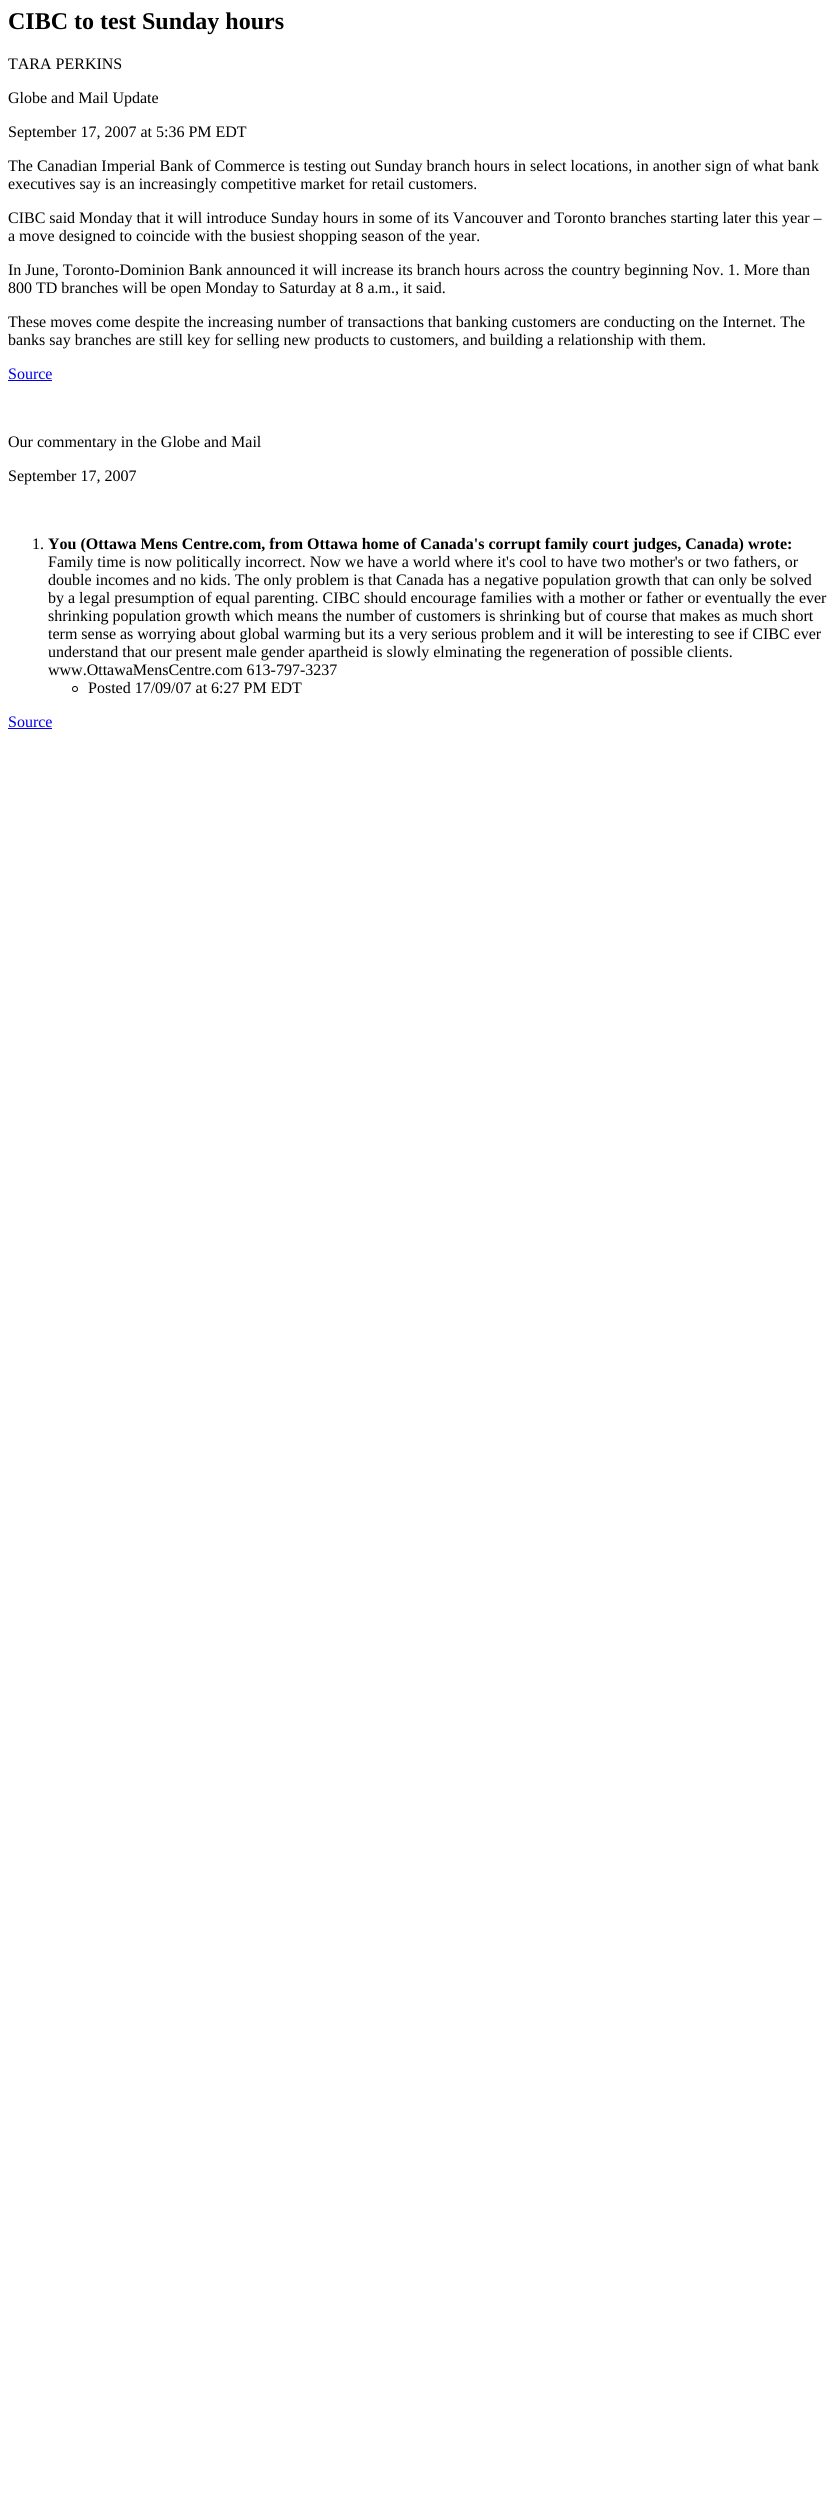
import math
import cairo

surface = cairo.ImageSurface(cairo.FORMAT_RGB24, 838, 2511)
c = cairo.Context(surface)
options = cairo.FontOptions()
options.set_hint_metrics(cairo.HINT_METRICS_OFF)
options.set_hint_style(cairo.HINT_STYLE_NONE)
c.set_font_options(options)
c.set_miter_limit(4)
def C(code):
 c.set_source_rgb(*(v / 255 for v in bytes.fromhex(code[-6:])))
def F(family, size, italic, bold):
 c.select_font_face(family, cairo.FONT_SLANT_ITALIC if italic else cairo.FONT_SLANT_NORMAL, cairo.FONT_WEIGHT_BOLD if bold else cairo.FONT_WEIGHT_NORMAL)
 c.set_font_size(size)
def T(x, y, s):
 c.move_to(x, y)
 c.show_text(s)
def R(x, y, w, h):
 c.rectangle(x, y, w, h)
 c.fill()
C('ffffff')
c.paint()
F('Liberation Serif',24,0,1)
C('000000')
T(8,29,'CIBC to test Sunday hours')
F('Liberation Serif',16,0,0)
T(8,69,'TARA PERKINS')
T(8,103,'Globe and Mail Update')
T(8,137,'September 17, 2007 at 5:36 PM EDT')
T(8,171,'The Canadian Imperial Bank of Commerce is testing out Sunday branch hours in select locations, in another sign of what bank')
T(8,189,'executives say is an increasingly competitive market for retail customers.')
T(8,223,'CIBC said Monday that it will introduce Sunday hours in some of its Vancouver and Toronto branches starting later this year –')
T(8,241,'a move designed to coincide with the busiest shopping season of the year.')
T(8,275,'In June, Toronto-Dominion Bank announced it will increase its branch hours across the country beginning Nov. 1. More than')
T(8,293,'800 TD branches will be open Monday to Saturday at 8 a.m., it said.')
T(8,327,'These moves come despite the increasing number of transactions that banking customers are conducting on the Internet. The')
T(8,345,'banks say branches are still key for selling new products to customers, and building a relationship with them.')
C('0000ee')
T(8,379,'Source')
R(8,380,44,1)
C('000000')
T(8,447,'Our commentary in the Globe and Mail')
T(8,481,'September 17, 2007')
T(32,549,'1.')
F('Liberation Serif',16,0,1)
T(48,549,'You (Ottawa Mens Centre.com, from Ottawa home of Canada\'s corrupt family court judges, Canada) wrote:')
F('Liberation Serif',16,0,0)
T(48,567,'Family time is now politically incorrect. Now we have a world where it\'s cool to have two mother\'s or two fathers, or')
T(48,585,'double incomes and no kids. The only problem is that Canada has a negative population growth that can only be solved')
T(48,603,'by a legal presumption of equal parenting. CIBC should encourage families with a mother or father or eventually the ever')
T(48,621,'shrinking population growth which means the number of customers is shrinking but of course that makes as much short')
T(48,639,'term sense as worrying about global warming but its a very serious problem and it will be interesting to see if CIBC ever')
T(48,657,'understand that our present male gender apartheid is slowly elminating the regeneration of possible clients.')
T(48,675,'www.OttawaMensCentre.com 613-797-3237')
c.new_path()
c.arc(75,689,2.5,0,2 * math.pi)
c.set_line_width(1)
c.stroke()
T(88,693,'Posted 17/09/07 at 6:27 PM EDT')
C('0000ee')
T(8,727,'Source')
R(8,728,44,1)
surface.write_to_png('o.png')
